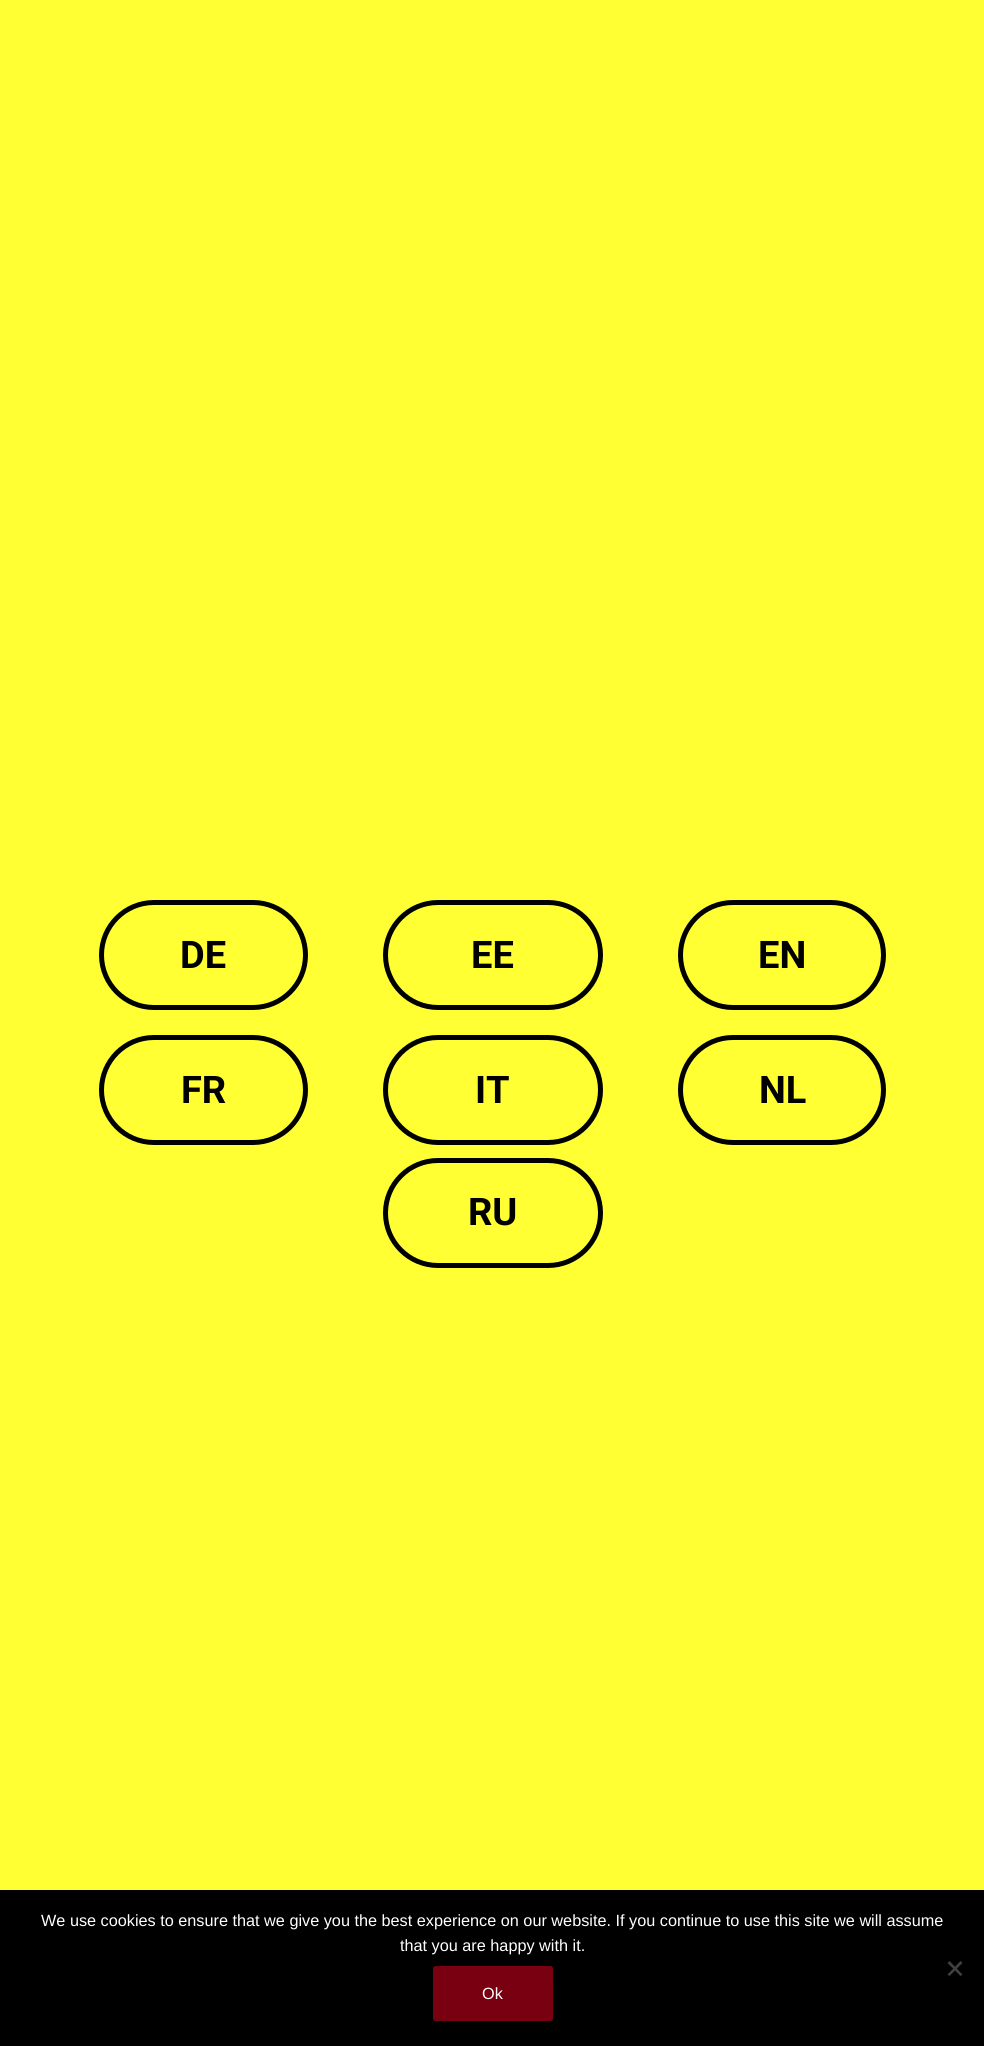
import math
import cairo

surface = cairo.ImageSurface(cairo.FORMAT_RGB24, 984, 2046)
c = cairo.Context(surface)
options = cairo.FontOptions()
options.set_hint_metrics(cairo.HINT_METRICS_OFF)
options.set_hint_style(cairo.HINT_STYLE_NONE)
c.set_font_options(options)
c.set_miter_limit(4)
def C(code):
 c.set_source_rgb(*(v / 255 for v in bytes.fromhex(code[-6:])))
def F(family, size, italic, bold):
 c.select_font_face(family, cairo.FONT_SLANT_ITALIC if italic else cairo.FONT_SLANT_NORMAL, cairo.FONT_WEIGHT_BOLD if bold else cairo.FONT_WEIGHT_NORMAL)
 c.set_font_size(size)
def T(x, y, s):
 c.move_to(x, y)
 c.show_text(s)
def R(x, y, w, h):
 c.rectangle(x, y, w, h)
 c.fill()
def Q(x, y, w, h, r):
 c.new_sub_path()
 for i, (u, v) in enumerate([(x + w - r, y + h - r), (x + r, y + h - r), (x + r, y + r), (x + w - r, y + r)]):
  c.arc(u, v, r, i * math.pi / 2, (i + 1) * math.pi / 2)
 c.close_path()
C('ffff33')
c.paint()
Q(101.5,902.5,204,105,52.5)
C('000000')
c.set_line_width(5)
c.stroke()
F('Roboto',38,0,1)
T(180,968,'DE')
Q(385.5,902.5,215,105,52.5)
c.stroke()
T(471,968,'EE')
Q(680.5,902.5,203,105,52.5)
c.stroke()
T(758,968,'EN')
Q(101.5,1037.5,204,105,52.5)
c.stroke()
T(181,1103,'FR')
Q(385.5,1037.5,215,105,52.5)
c.stroke()
T(475,1103,'IT')
Q(680.5,1037.5,203,105,52.5)
c.stroke()
T(759,1103,'NL')
Q(385.5,1160.5,215,105,52.5)
c.stroke()
T(468,1225,'RU')
R(0,1890,984,156)
F('Liberation Sans',16.25,0,0)
C('ffffff')
T(41,1926,'We use cookies to ensure that we give you the best experience on our website. If you continue to use this site we will assume')
T(400,1951,'that you are happy with it.')
C('404040')
c.new_path()
c.move_to(960.5,1961)
c.line_to(962.5,1963)
c.line_to(949.5,1976)
c.line_to(947.5,1974.5)
c.close_path()
c.fill()
c.new_path()
c.move_to(947.5,1963)
c.line_to(949.5,1961)
c.line_to(962.5,1974.5)
c.line_to(960.5,1976)
c.close_path()
c.fill()
C('780010')
Q(433,1966,120,55,2.5)
c.fill()
C('ffffff')
T(482,1999,'Ok')
surface.write_to_png('o.png')
